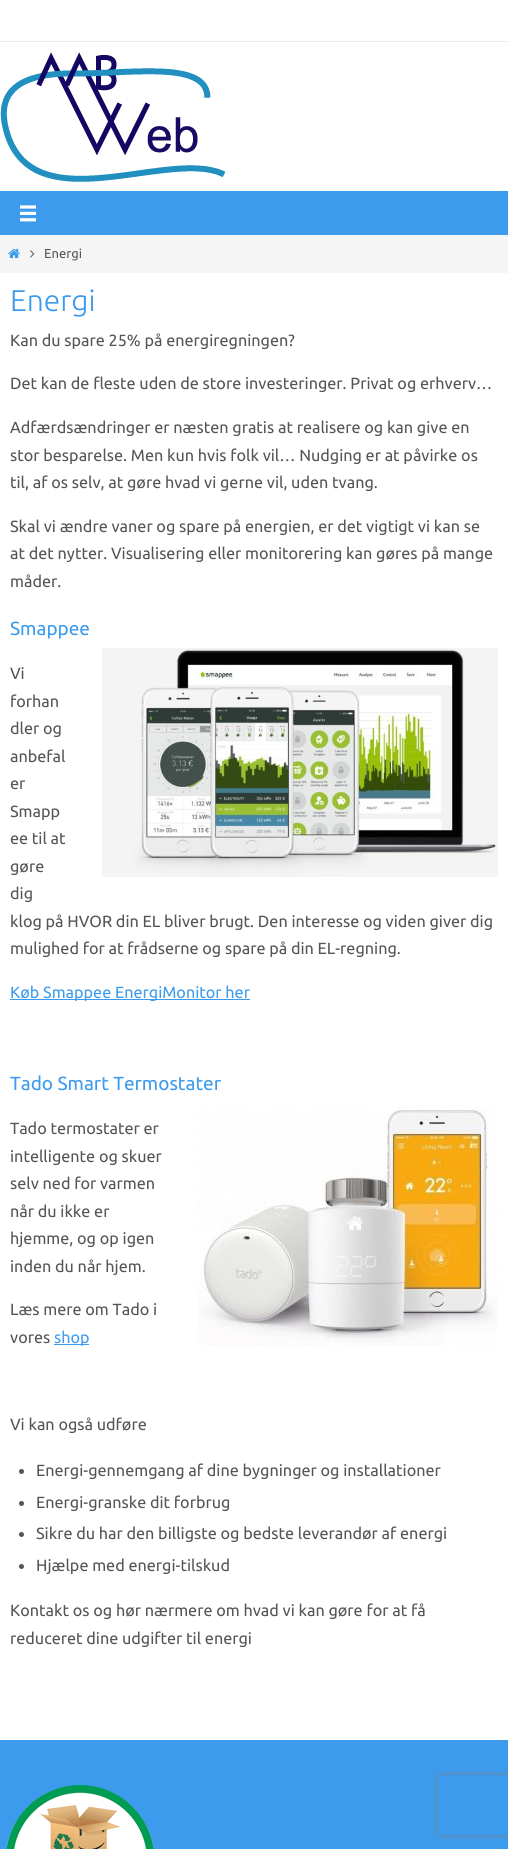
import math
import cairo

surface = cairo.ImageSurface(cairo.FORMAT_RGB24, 508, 1849)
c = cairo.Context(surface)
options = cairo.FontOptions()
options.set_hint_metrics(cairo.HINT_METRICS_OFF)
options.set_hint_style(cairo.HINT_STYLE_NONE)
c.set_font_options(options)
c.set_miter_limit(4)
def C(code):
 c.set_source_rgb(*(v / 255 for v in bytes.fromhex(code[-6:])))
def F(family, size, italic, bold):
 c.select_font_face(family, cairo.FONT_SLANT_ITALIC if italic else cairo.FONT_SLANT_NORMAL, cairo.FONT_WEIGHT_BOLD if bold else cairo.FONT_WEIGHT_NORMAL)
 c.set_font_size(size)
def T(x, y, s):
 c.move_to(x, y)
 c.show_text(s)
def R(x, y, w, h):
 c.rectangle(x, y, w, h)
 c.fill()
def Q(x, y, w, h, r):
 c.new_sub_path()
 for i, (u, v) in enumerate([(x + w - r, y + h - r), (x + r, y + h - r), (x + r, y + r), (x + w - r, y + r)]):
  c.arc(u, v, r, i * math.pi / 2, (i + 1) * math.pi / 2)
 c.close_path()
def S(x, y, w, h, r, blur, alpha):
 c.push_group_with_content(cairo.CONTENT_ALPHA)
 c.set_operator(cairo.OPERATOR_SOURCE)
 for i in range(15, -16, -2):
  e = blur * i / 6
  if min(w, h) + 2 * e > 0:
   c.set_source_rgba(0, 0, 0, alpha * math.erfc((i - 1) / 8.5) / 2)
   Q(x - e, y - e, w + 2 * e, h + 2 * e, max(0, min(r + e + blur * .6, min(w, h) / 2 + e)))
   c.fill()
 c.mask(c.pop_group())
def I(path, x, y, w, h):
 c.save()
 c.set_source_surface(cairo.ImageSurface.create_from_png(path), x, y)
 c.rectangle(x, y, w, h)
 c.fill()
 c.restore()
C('ffffff')
c.paint()
C('ebebeb')
R(0,41,508,1)
I('1.png',0,52,226,130)
C('3c9bed')
R(0,191,508,44)
I('2.png',20,205,16,17)
C('f5f5f5')
R(0,235,508,38)
I('3.png',8,248,12,11)
I('4.png',30,250,5,8)
F('Ubuntu',13,0,0)
C('555555')
T(44,258,'Energi')
F('Ubuntu Light',30,0,0)
C('3c9bed')
T(10,311,'Energi')
F('Ubuntu',16.2,0,0)
C('555555')
T(10,346,'Kan du spare 25% på energiregningen?')
T(10,389,'Det kan de fleste uden de store investeringer. Privat og erhverv…')
T(10,433,'Adfærdsændringer er næsten gratis at realisere og kan give en')
T(10,461,'stor besparelse. Men kun hvis folk vil… Nudging er at påvirke os')
T(10,488,'til, af os selv, at gøre hvad vi gerne vil, uden tvang.')
T(10,532,'Skal vi ændre vaner og spare på energien, er det vigtigt vi kan se')
T(10,559,'at det nytter. Visualisering eller monitorering kan gøres på mange')
T(10,587,'måder.')
F('Ubuntu',19,0,0)
C('3c9bed')
T(10,635,'Smappee')
I('5.png',102,648,396,229)
F('Ubuntu',16.2,0,0)
C('555555')
T(10,679,'Vi')
T(10,707,'forhan')
T(10,734,'dler og')
T(10,762,'anbefal')
T(10,789,'er')
T(10,817,'Smapp')
T(10,844,'ee til at')
T(10,872,'gøre')
T(10,899,'dig')
T(10,927,'klog på HVOR din EL bliver brugt. Den interesse og viden giver dig')
T(10,954,'mulighed for at frådserne og spare på din EL-regning.')
C('3c9bed')
R(10,999,240,1)
T(10,998,'Køb Smappee EnergiMonitor her')
F('Ubuntu',19,0,0)
T(10,1090,'Tado Smart Termostater')
F('Ubuntu',16.2,0,0)
C('555555')
T(10,1134,'Tado termostater er')
T(10,1162,'intelligente og skuer')
T(10,1189,'selv ned for varmen')
T(10,1217,'når du ikke er')
T(10,1244,'hjemme, og op igen')
T(10,1272,'inden du når hjem.')
I('6.png',198,1107,300,239)
T(10,1315,'Læs mere om Tado i')
T(10,1343,'vores')
C('3c9bed')
R(54,1344,35,1)
T(54,1343,'shop')
C('555555')
T(10,1430,'Vi kan også udføre')
c.new_path()
c.arc(21.5,1471.5,2.5,0,2 * math.pi)
c.fill()
T(36,1476,'Energi-gennemgang af dine bygninger og installationer')
c.new_path()
c.arc(21.5,1503.5,2.5,0,2 * math.pi)
c.fill()
T(36,1508,'Energi-granske dit forbrug')
c.new_path()
c.arc(21.5,1534.5,2.5,0,2 * math.pi)
c.fill()
T(36,1539,'Sikre du har den billigste og bedste leverandør af energi')
c.new_path()
c.arc(21.5,1566.5,2.5,0,2 * math.pi)
c.fill()
T(36,1571,'Hjælpe med energi-tilskud')
T(10,1616,'Kontakt os og hør nærmere om hvad vi kan gøre for at få')
T(10,1644,'reduceret dine udgifter til energi')
C('3c9bed')
R(0,1740,508,109)
I('7.png',6,1785,148,64)
c.save()
c.set_fill_rule(cairo.FILL_RULE_EVEN_ODD)
c.new_path()
c.move_to(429,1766)
c.line_to(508,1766)
c.line_to(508,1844)
c.line_to(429,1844)
c.close_path()
c.move_to(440,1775)
c.line_to(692,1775)
c.curve_to(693,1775,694,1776,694,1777)
c.line_to(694,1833)
c.curve_to(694,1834,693,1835,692,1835)
c.line_to(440,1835)
c.curve_to(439,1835,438,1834,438,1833)
c.line_to(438,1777)
c.curve_to(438,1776,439,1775,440,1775)
c.close_path()
c.clip()
C('808080')
S(438,1775,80,60,2,2.5,1)
c.restore()
surface.write_to_png('o.png')
